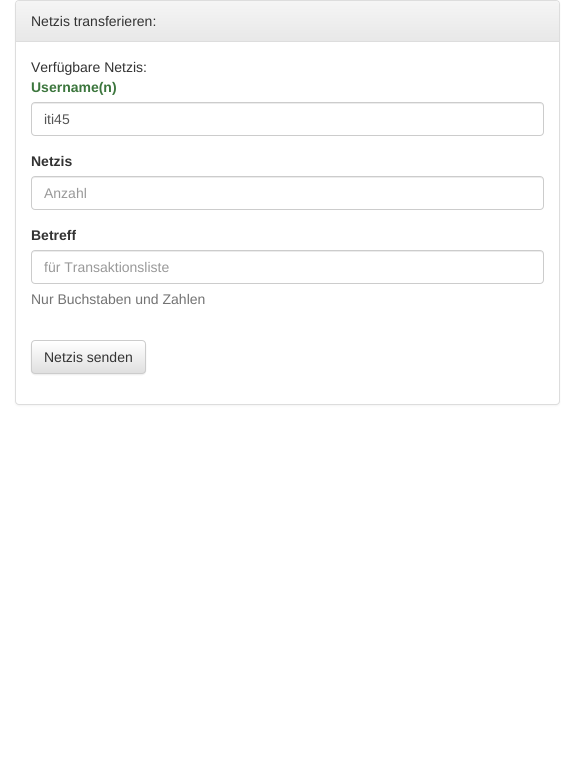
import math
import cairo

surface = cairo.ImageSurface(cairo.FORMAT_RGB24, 575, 778)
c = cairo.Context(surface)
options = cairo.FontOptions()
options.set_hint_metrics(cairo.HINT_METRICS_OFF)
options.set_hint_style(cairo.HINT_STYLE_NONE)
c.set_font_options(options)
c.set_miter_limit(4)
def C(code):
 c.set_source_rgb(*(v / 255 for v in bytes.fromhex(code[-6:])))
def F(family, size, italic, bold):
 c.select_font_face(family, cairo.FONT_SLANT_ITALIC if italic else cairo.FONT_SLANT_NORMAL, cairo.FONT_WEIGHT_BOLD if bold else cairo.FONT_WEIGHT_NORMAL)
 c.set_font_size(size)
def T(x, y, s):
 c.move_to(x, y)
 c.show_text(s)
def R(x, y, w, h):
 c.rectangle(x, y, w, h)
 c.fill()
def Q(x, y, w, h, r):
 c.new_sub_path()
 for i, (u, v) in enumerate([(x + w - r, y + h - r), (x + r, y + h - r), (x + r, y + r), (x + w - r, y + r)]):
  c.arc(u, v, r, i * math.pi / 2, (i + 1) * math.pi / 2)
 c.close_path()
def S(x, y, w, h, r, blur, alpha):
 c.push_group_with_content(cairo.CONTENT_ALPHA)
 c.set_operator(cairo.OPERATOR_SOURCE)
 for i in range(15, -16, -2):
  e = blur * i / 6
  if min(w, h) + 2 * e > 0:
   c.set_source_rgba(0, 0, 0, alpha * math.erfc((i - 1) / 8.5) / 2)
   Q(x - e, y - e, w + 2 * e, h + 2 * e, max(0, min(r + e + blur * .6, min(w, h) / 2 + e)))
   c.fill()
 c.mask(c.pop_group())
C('ffffff')
c.paint()
C('000000')
S(15,1,545,405,4,1,.05)
C('ffffff')
Q(15.5,.5,544,404,3.5)
c.fill_preserve()
C('dddddd')
c.set_line_width(1)
c.stroke()
gradient = cairo.LinearGradient(288,1,288,41)
gradient.add_color_stop_rgba(0,0.961,0.961,0.961,1)
gradient.add_color_stop_rgba(1,0.91,0.91,0.91,1)
c.set_source(gradient)
c.new_path()
c.move_to(19,1)
c.line_to(556,1)
c.curve_to(557.5,1,559,2.5,559,4)
c.line_to(559,41)
c.line_to(16,41)
c.line_to(16,4)
c.curve_to(16,2.5,17.5,1,19,1)
c.close_path()
c.fill()
C('dddddd')
R(16,41,543,1)
F('Liberation Sans',14,0,0)
C('333333')
T(31,26,'Netzis transferieren:')
T(31,72,'Verfügbare Netzis:')
F('Liberation Sans',14,0,1)
C('3c763d')
T(31,92,'Username(n)')
C('ececec')
c.new_path()
c.move_to(35,104)
c.line_to(540,104)
c.curve_to(542,104,543,105,543,107)
c.line_to(543,105)
c.line_to(541,103)
c.line_to(35,103)
c.curve_to(33,103,32,105,32,107)
c.curve_to(32,105,33,104,35,104)
c.close_path()
c.fill()
Q(31.5,102.5,512,33,3.5)
C('cccccc')
c.stroke()
F('Liberation Sans',14,0,0)
C('555555')
T(44,124,'iti45')
F('Liberation Sans',14,0,1)
C('333333')
T(31,166,'Netzis')
C('ececec')
c.new_path()
c.move_to(35,178)
c.line_to(540,178)
c.curve_to(542,178,543,179,543,181)
c.line_to(543,179)
c.line_to(541,177)
c.line_to(35,177)
c.curve_to(33,177,32,179,32,181)
c.curve_to(32,179,33,178,35,178)
c.close_path()
c.fill()
Q(31.5,176.5,512,33,3.5)
C('cccccc')
c.stroke()
F('Liberation Sans',14,0,0)
C('999999')
T(44,198,'Anzahl')
F('Liberation Sans',14,0,1)
C('333333')
T(31,240,'Betreff')
C('ececec')
c.new_path()
c.move_to(35,252)
c.line_to(540,252)
c.curve_to(542,252,543,253,543,255)
c.line_to(543,253)
c.line_to(541,251)
c.line_to(35,251)
c.curve_to(33,251,32,253,32,255)
c.curve_to(32,253,33,252,35,252)
c.close_path()
c.fill()
Q(31.5,250.5,512,33,3.5)
C('cccccc')
c.stroke()
F('Liberation Sans',14,0,0)
C('999999')
T(44,272,'für Transaktionsliste')
C('737373')
T(31,304,'Nur Buchstaben und Zahlen')
C('000000')
S(31,341,115,34,4,.5,.07)
c.save()
Q(31,340,115,34,4)
c.clip()
gradient = cairo.LinearGradient(89,341,89,373)
gradient.add_color_stop_rgba(0,1,1,1,1)
gradient.add_color_stop_rgba(1,0.878,0.878,0.878,1)
c.set_source(gradient)
R(31,341,115,32)
c.restore()
Q(31.5,340.5,114,33,3.5)
C('cccccc')
c.stroke()
C('333333')
T(44,362,'Netzis senden')
surface.write_to_png('o.png')
